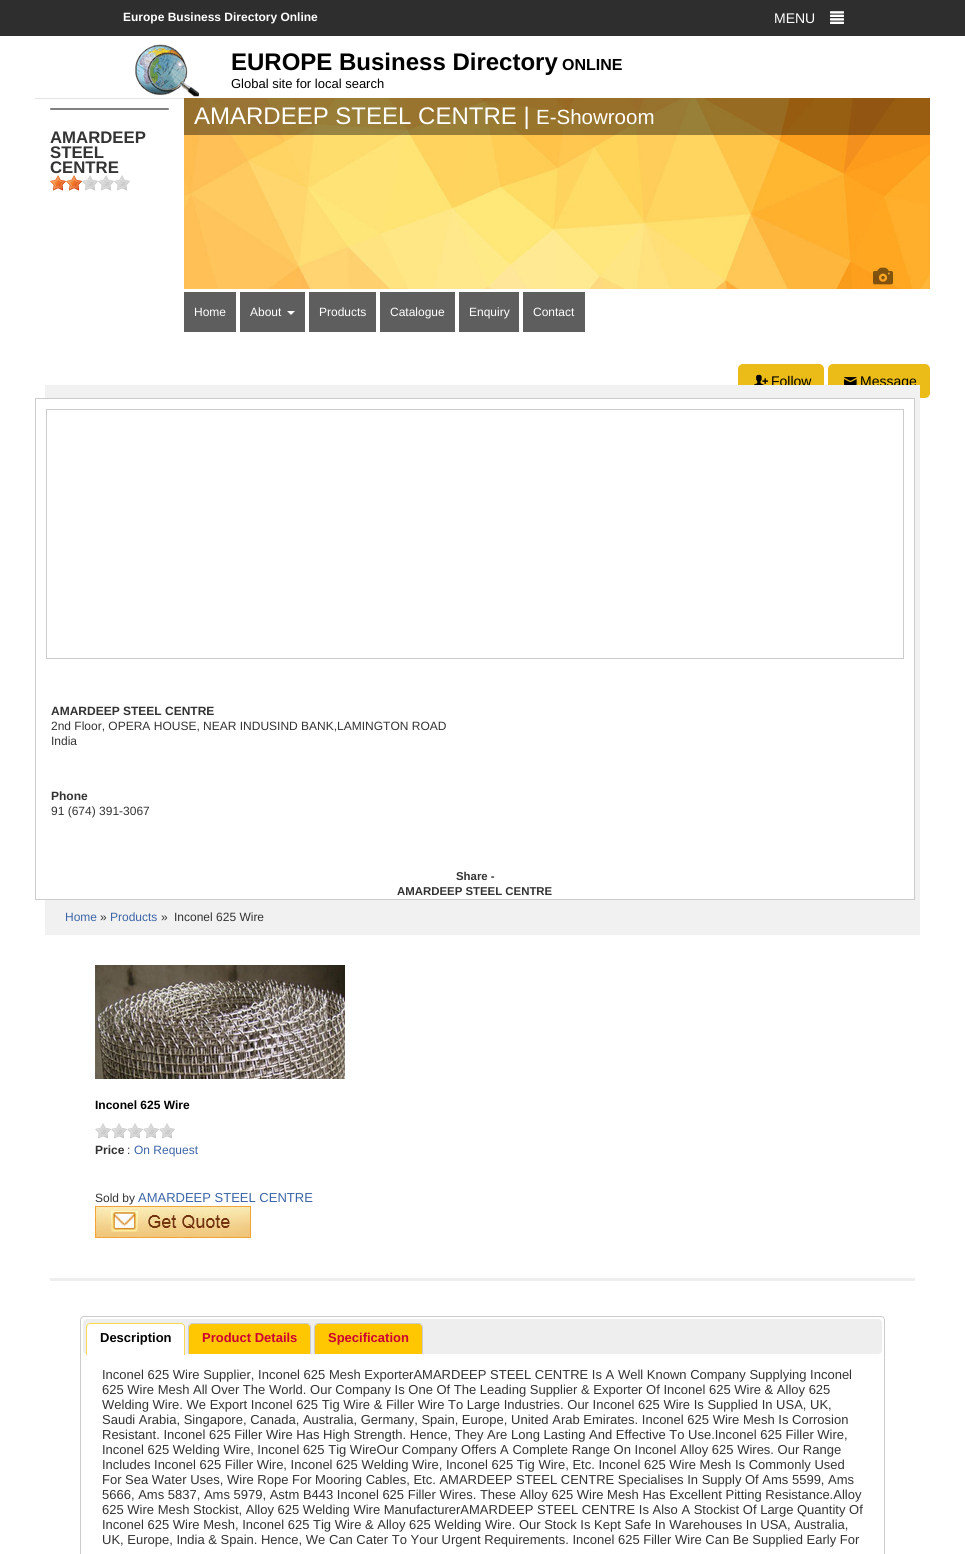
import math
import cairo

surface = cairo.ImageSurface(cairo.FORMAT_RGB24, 965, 1554)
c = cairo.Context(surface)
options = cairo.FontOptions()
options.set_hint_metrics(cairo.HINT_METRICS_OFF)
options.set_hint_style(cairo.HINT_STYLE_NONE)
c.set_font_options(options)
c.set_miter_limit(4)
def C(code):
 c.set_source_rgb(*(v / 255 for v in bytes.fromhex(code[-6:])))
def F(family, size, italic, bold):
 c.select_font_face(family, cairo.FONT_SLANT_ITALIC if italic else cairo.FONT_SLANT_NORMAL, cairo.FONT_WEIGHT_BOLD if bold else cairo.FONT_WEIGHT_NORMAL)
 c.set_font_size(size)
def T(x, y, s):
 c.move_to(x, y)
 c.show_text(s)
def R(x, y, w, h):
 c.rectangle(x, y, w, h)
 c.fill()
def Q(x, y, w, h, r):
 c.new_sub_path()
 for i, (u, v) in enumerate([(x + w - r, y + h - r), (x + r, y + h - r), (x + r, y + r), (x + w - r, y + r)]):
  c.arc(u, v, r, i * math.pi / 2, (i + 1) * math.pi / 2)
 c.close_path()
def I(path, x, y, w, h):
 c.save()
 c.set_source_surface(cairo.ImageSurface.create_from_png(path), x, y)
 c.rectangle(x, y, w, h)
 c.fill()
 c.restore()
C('ffffff')
c.paint()
C('2e2e2e')
R(0,0,965,36)
F('Liberation Sans',12,0,1)
C('ffffff')
T(123,21,'Europe Business Directory Online')
F('Liberation Sans',14,0,0)
T(774,23,'MENU')
I('1.png',830,11,14,13)
I('2.png',135,44,64,53)
F('Liberation Sans',24,0,1)
C('000000')
T(231,70,'EUROPE Business Directory')
F('Liberation Sans',16,0,1)
T(562,70,'ONLINE')
F('Liberation Sans',13,0,0)
T(231,88,'Global site for local search')
C('e3e3e3')
R(35,98,149,1)
C('808080')
Q(50,108,119,2,1)
c.fill()
F('Liberation Sans',16.75,0,1)
C('333333')
T(50,143,'AMARDEEP')
T(50,158,'STEEL')
T(50,173,'CENTRE')
I('3.png',82,175,48,16)
I('4.png',50,175,32,16)
I('5.png',184,98,746,191)
c.set_source_rgba(0,0,0,0.4)
R(184,98,746,37)
F('Liberation Sans',24,0,0)
C('ffffff')
T(194,124,'AMARDEEP STEEL CENTRE |')
F('Liberation Sans',20.5,0,0)
T(536,124,'E-Showroom')
I('6.png',873,267,20,18)
C('5e5e5e')
R(184,292,52,40)
F('Liberation Sans',12,0,0)
C('ffffff')
T(194,316,'Home')
C('5e5e5e')
R(240,292,65,40)
C('ffffff')
T(250,316,'About')
c.new_path()
c.move_to(287,311)
c.line_to(295,311)
c.line_to(291,315)
c.close_path()
c.fill()
C('5e5e5e')
R(309,292,67,40)
C('ffffff')
T(319,316,'Products')
C('5e5e5e')
R(380,292,75,40)
C('ffffff')
T(390,316,'Catalogue')
C('5e5e5e')
R(459,292,60,40)
C('ffffff')
T(469,316,'Enquiry')
C('5e5e5e')
R(523,292,62,40)
C('ffffff')
T(533,316,'Contact')
C('ebbc18')
Q(738,364,86,34,5)
c.fill()
I('7.png',754,374,14,11)
F('Liberation Sans',14,0,0)
C('000000')
T(771,386,'Follow')
C('ebbc18')
Q(828,364,102,34,5)
c.fill()
I('8.png',844,377,13,8)
C('000000')
T(860,386,'Message')
C('f1f1f1')
R(45,385,875,550)
C('ffffff')
R(45,399,869,500)
c.rectangle(35.5,398.5,879,501)
C('cccccc')
c.set_line_width(1)
c.stroke()
c.rectangle(46.5,409.5,857,249)
c.stroke()
F('Liberation Sans',12,0,1)
C('333333')
T(51,715,'AMARDEEP STEEL CENTRE')
F('Liberation Sans',12,0,0)
T(51,730,'2nd Floor, OPERA HOUSE, NEAR INDUSIND BANK,LAMINGTON ROAD')
T(51,745,'India')
F('Liberation Sans',12,0,1)
T(51,800,'Phone')
F('Liberation Sans',12,0,0)
T(51,815,'91 (674) 391-3067')
F('Liberation Sans',11.4,0,1)
T(456,880,'Share -')
T(397,895,'AMARDEEP STEEL CENTRE')
F('Liberation Sans',12,0,0)
C('3b65a7')
T(65,921,'Home')
C('333333')
T(100,921,'»')
C('3b65a7')
T(110,921,'Products')
C('333333')
T(161,921,'»')
T(174,921,'Inconel 625 Wire')
I('9.png',95,965,250,114)
F('Liberation Sans',12,0,1)
C('000000')
T(95,1109,'Inconel 625 Wire')
I('10.png',95,1123,80,16)
C('333333')
T(95,1154,'Price')
F('Liberation Sans',12,0,0)
T(127,1154,':')
C('3b65a7')
T(134,1154,'On Request')
C('333333')
T(95,1202,'Sold by')
F('Liberation Sans',13,0,0)
C('3b65a7')
T(138,1202,'AMARDEEP STEEL CENTRE')
I('11.png',95,1206,156,32)
C('eeeeee')
R(50,1278,865,3)
Q(80.5,1316.5,804,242,3.5)
C('cccccc')
c.stroke()
C('eeeeee')
Q(83,1319,799,35,4)
c.fill()
C('ffffff')
c.new_path()
c.move_to(90,1324)
c.line_to(181,1324)
c.curve_to(182.5,1324,184,1325.5,184,1327)
c.line_to(184,1355)
c.line_to(87,1355)
c.line_to(87,1327)
c.curve_to(87,1325.5,88.5,1324,90,1324)
c.close_path()
c.fill()
C('fbd850')
c.set_fill_rule(cairo.FILL_RULE_EVEN_ODD)
c.new_path()
c.move_to(90,1323)
c.line_to(181,1323)
c.curve_to(183,1323,185,1325,185,1327)
c.line_to(185,1355)
c.line_to(86,1355)
c.line_to(86,1327)
c.curve_to(86,1325,88,1323,90,1323)
c.close_path()
c.move_to(90,1324)
c.line_to(181,1324)
c.curve_to(183,1324,184,1325,184,1327)
c.line_to(184,1355)
c.line_to(87,1355)
c.line_to(87,1327)
c.curve_to(87,1325,88,1324,90,1324)
c.close_path()
c.fill()
F('Liberation Sans',13,0,1)
C('000000')
T(100,1342,'Description')
C('ffc602')
c.new_path()
c.move_to(192,1324)
c.line_to(307,1324)
c.curve_to(308.5,1324,310,1325.5,310,1327)
c.line_to(310,1354)
c.line_to(189,1354)
c.line_to(189,1327)
c.curve_to(189,1325.5,190.5,1324,192,1324)
c.close_path()
c.fill()
C('cccccc')
c.new_path()
c.move_to(192,1323)
c.line_to(307,1323)
c.curve_to(309,1323,311,1325,311,1327)
c.line_to(311,1354)
c.line_to(188,1354)
c.line_to(188,1327)
c.curve_to(188,1325,190,1323,192,1323)
c.close_path()
c.move_to(192,1324)
c.line_to(307,1324)
c.curve_to(309,1324,310,1325,310,1327)
c.line_to(310,1354)
c.line_to(189,1354)
c.line_to(189,1327)
c.curve_to(189,1325,190,1324,192,1324)
c.close_path()
c.fill()
C('cc0033')
T(202,1342,'Product Details')
C('ffc602')
c.new_path()
c.move_to(318,1324)
c.line_to(419,1324)
c.curve_to(420.5,1324,422,1325.5,422,1327)
c.line_to(422,1354)
c.line_to(315,1354)
c.line_to(315,1327)
c.curve_to(315,1325.5,316.5,1324,318,1324)
c.close_path()
c.fill()
C('cccccc')
c.new_path()
c.move_to(318,1323)
c.line_to(419,1323)
c.curve_to(421,1323,423,1325,423,1327)
c.line_to(423,1354)
c.line_to(314,1354)
c.line_to(314,1327)
c.curve_to(314,1325,316,1323,318,1323)
c.close_path()
c.move_to(318,1324)
c.line_to(419,1324)
c.curve_to(421,1324,422,1325,422,1327)
c.line_to(422,1354)
c.line_to(315,1354)
c.line_to(315,1327)
c.curve_to(315,1325,316,1324,318,1324)
c.close_path()
c.fill()
C('cc0033')
T(328,1342,'Specification')
F('Liberation Sans',13,0,0)
C('333333')
T(102,1379,'Inconel 625 Wire Supplier, Inconel 625 Mesh ExporterAMARDEEP STEEL CENTRE Is A Well Known Company Supplying Inconel')
T(102,1394,'625 Wire Mesh All Over The World. Our Company Is One Of The Leading Supplier & Exporter Of Inconel 625 Wire & Alloy 625')
T(102,1409,'Welding Wire. We Export Inconel 625 Tig Wire & Filler Wire To Large Industries. Our Inconel 625 Wire Is Supplied In USA, UK,')
T(102,1424,'Saudi Arabia, Singapore, Canada, Australia, Germany, Spain, Europe, United Arab Emirates. Inconel 625 Wire Mesh Is Corrosion')
T(102,1439,'Resistant. Inconel 625 Filler Wire Has High Strength. Hence, They Are Long Lasting And Effective To Use.Inconel 625 Filler Wire,')
T(102,1454,'Inconel 625 Welding Wire, Inconel 625 Tig WireOur Company Offers A Complete Range On Inconel Alloy 625 Wires. Our Range')
T(102,1469,'Includes Inconel 625 Filler Wire, Inconel 625 Welding Wire, Inconel 625 Tig Wire, Etc. Inconel 625 Wire Mesh Is Commonly Used')
T(102,1484,'For Sea Water Uses, Wire Rope For Mooring Cables, Etc. AMARDEEP STEEL CENTRE Specialises In Supply Of Ams 5599, Ams')
T(102,1499,'5666, Ams 5837, Ams 5979, Astm B443 Inconel 625 Filler Wires. These Alloy 625 Wire Mesh Has Excellent Pitting Resistance.Alloy')
T(102,1514,'625 Wire Mesh Stockist, Alloy 625 Welding Wire ManufacturerAMARDEEP STEEL CENTRE Is Also A Stockist Of Large Quantity Of')
T(102,1529,'Inconel 625 Wire Mesh, Inconel 625 Tig Wire & Alloy 625 Welding Wire. Our Stock Is Kept Safe In Warehouses In USA, Australia,')
T(102,1544,'UK, Europe, India & Spain. Hence, We Can Cater To Your Urgent Requirements. Inconel 625 Filler Wire Can Be Supplied Early For')
surface.write_to_png('o.png')
